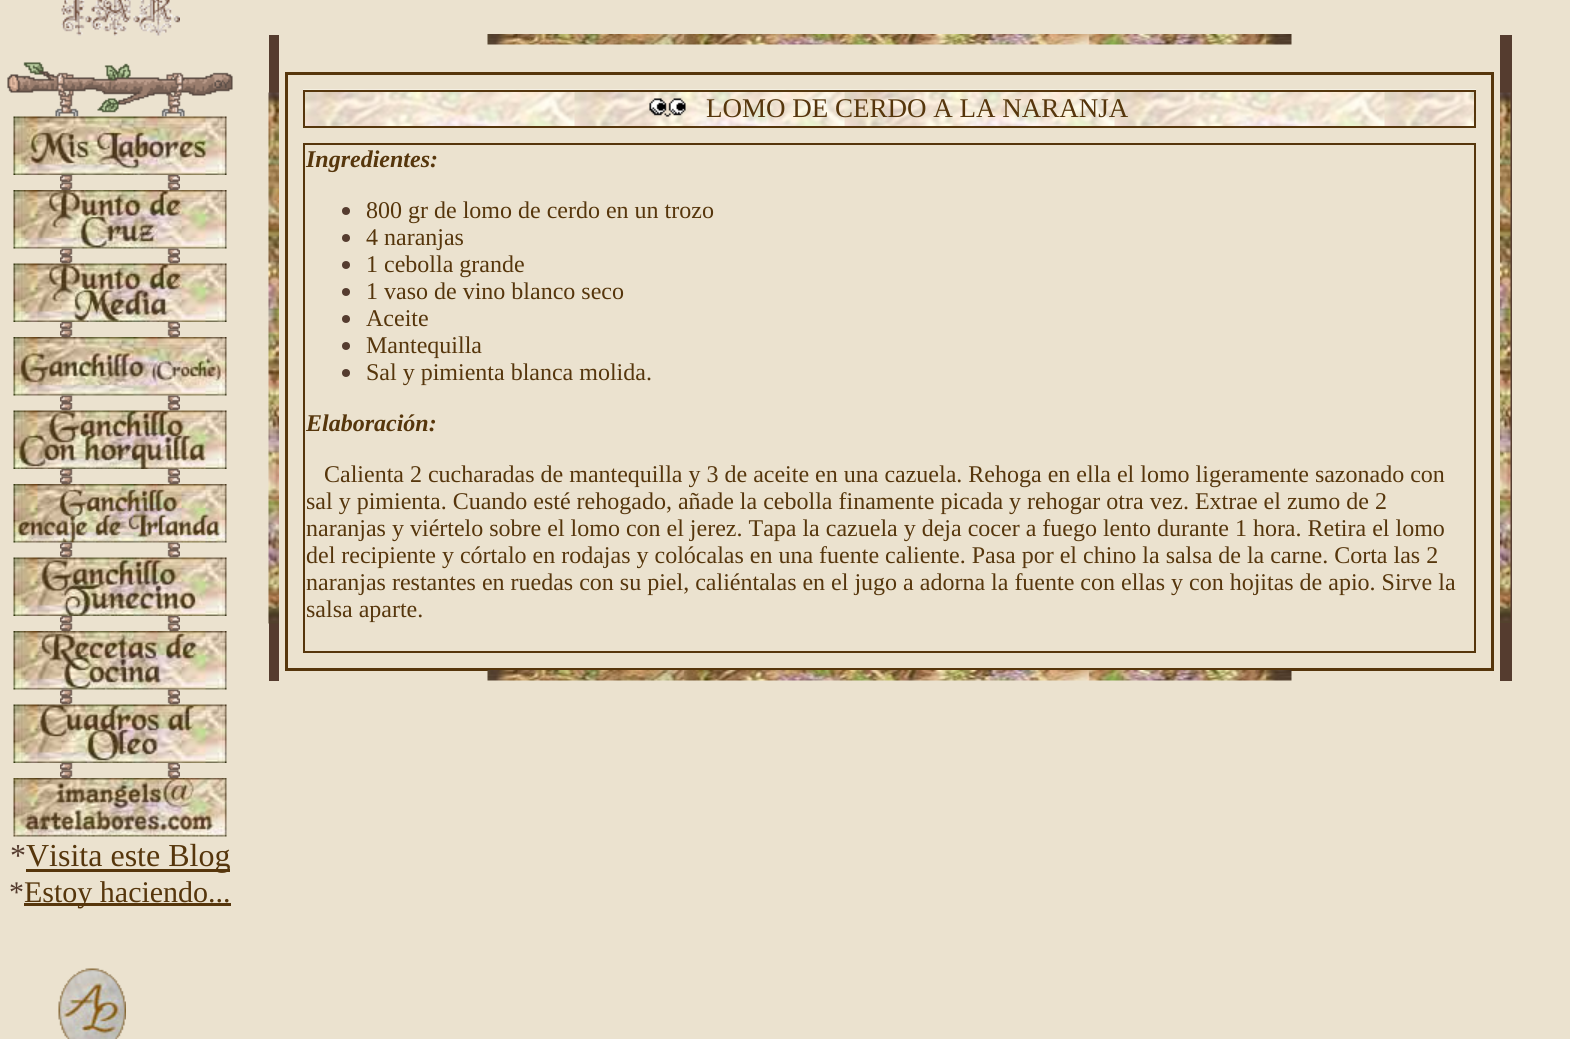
import math
import cairo

surface = cairo.ImageSurface(cairo.FORMAT_RGB24, 1570, 1039)
c = cairo.Context(surface)
options = cairo.FontOptions()
options.set_hint_metrics(cairo.HINT_METRICS_OFF)
options.set_hint_style(cairo.HINT_STYLE_NONE)
c.set_font_options(options)
c.set_miter_limit(4)
def C(code):
 c.set_source_rgb(*(v / 255 for v in bytes.fromhex(code[-6:])))
def F(family, size, italic, bold):
 c.select_font_face(family, cairo.FONT_SLANT_ITALIC if italic else cairo.FONT_SLANT_NORMAL, cairo.FONT_WEIGHT_BOLD if bold else cairo.FONT_WEIGHT_NORMAL)
 c.set_font_size(size)
def T(x, y, s):
 c.move_to(x, y)
 c.show_text(s)
def R(x, y, w, h):
 c.rectangle(x, y, w, h)
 c.fill()
def I(path, x, y, w, h):
 c.save()
 c.set_source_surface(cairo.ImageSurface.create_from_png(path), x, y)
 c.rectangle(x, y, w, h)
 c.fill()
 c.restore()
C('ebe2cf')
c.paint()
C('553c2f')
R(269,35,10,646)
I('1.png',268,92,11,532)
I('2.png',487,34,805,11)
R(1500,35,12,646)
I('3.png',1500,92,11,531)
c.rectangle(286.5,73.5,1206,596)
C('56360c')
c.set_line_width(3)
c.stroke()
I('4.png',303,89,1173,37)
c.rectangle(304,91,1171,36)
c.set_line_width(2)
c.stroke()
I('5.png',649,98,37,19)
F('Liberation Serif',27,0,0)
T(706,117,'LOMO DE CERDO A LA NARANJA')
c.rectangle(304,144,1171,508)
c.stroke()
F('Liberation Serif',24,1,1)
T(306,167,'Ingredientes:')
C('553c2f')
c.new_path()
c.arc(346,211,4,0,2 * math.pi)
c.fill()
F('Liberation Serif',24,0,0)
C('56360c')
T(366,218,'800 gr de lomo de cerdo en un trozo')
C('553c2f')
c.new_path()
c.arc(346,238,4,0,2 * math.pi)
c.fill()
C('56360c')
T(366,245,'4 naranjas')
C('553c2f')
c.new_path()
c.arc(346,265,4,0,2 * math.pi)
c.fill()
C('56360c')
T(366,272,'1 cebolla grande')
C('553c2f')
c.new_path()
c.arc(346,292,4,0,2 * math.pi)
c.fill()
C('56360c')
T(366,299,'1 vaso de vino blanco seco')
C('553c2f')
c.new_path()
c.arc(346,319,4,0,2 * math.pi)
c.fill()
C('56360c')
T(366,326,'Aceite')
C('553c2f')
c.new_path()
c.arc(346,346,4,0,2 * math.pi)
c.fill()
C('56360c')
T(366,353,'Mantequilla')
C('553c2f')
c.new_path()
c.arc(346,373,4,0,2 * math.pi)
c.fill()
C('56360c')
T(366,380,'Sal y pimienta blanca molida.')
F('Liberation Serif',24,1,1)
T(306,431,'Elaboración:')
F('Liberation Serif',24,0,0)
T(324,482,'Calienta 2 cucharadas de mantequilla y 3 de aceite en una cazuela. Rehoga en ella el lomo ligeramente sazonado con')
T(306,509,'sal y pimienta. Cuando esté rehogado, añade la cebolla finamente picada y rehogar otra vez. Extrae el zumo de 2')
T(306,536,'naranjas y viértelo sobre el lomo con el jerez. Tapa la cazuela y deja cocer a fuego lento durante 1 hora. Retira el lomo')
T(306,563,'del recipiente y córtalo en rodajas y colócalas en una fuente caliente. Pasa por el chino la salsa de la carne. Corta las 2')
T(306,590,'naranjas restantes en ruedas con su piel, caliéntalas en el jugo a adorna la fuente con ellas y con hojitas de apio. Sirve la')
T(306,617,'salsa aparte.')
I('6.png',487,670,805,11)
I('7.png',61,0,119,36)
I('8.png',7,62,226,55)
I('9.png',13,116,214,59)
I('10.png',60,175,120,8)
I('11.png',60,182,120,8)
I('12.png',13,190,214,59)
I('13.png',60,248,120,8)
I('10.png',60,256,120,8)
I('14.png',13,263,214,59)
I('10.png',60,322,120,8)
I('11.png',60,329,120,8)
I('15.png',13,337,214,59)
I('16.png',60,395,120,8)
I('10.png',60,403,120,8)
I('17.png',13,410,214,59)
I('10.png',60,469,120,8)
I('11.png',60,476,120,8)
I('18.png',13,484,214,59)
I('19.png',60,542,120,8)
I('10.png',60,550,120,8)
I('20.png',13,557,214,59)
I('10.png',60,616,120,8)
I('11.png',60,623,120,8)
I('21.png',13,631,214,59)
I('22.png',60,689,120,8)
I('10.png',60,697,120,8)
I('23.png',13,704,214,59)
I('10.png',60,763,120,8)
I('11.png',60,770,120,8)
I('24.png',13,778,214,59)
F('Liberation Serif',32,0,0)
C('553c2f')
T(10,866,'*')
C('56360c')
R(26,869,204,3)
T(26,866,'Visita este Blog')
F('Liberation Serif',30,0,0)
C('553c2f')
T(9,902,'*')
C('56360c')
R(24,903,207,3)
T(24,902,'Estoy haciendo...')
I('25.png',58,968,68,71)
surface.write_to_png('o.png')
